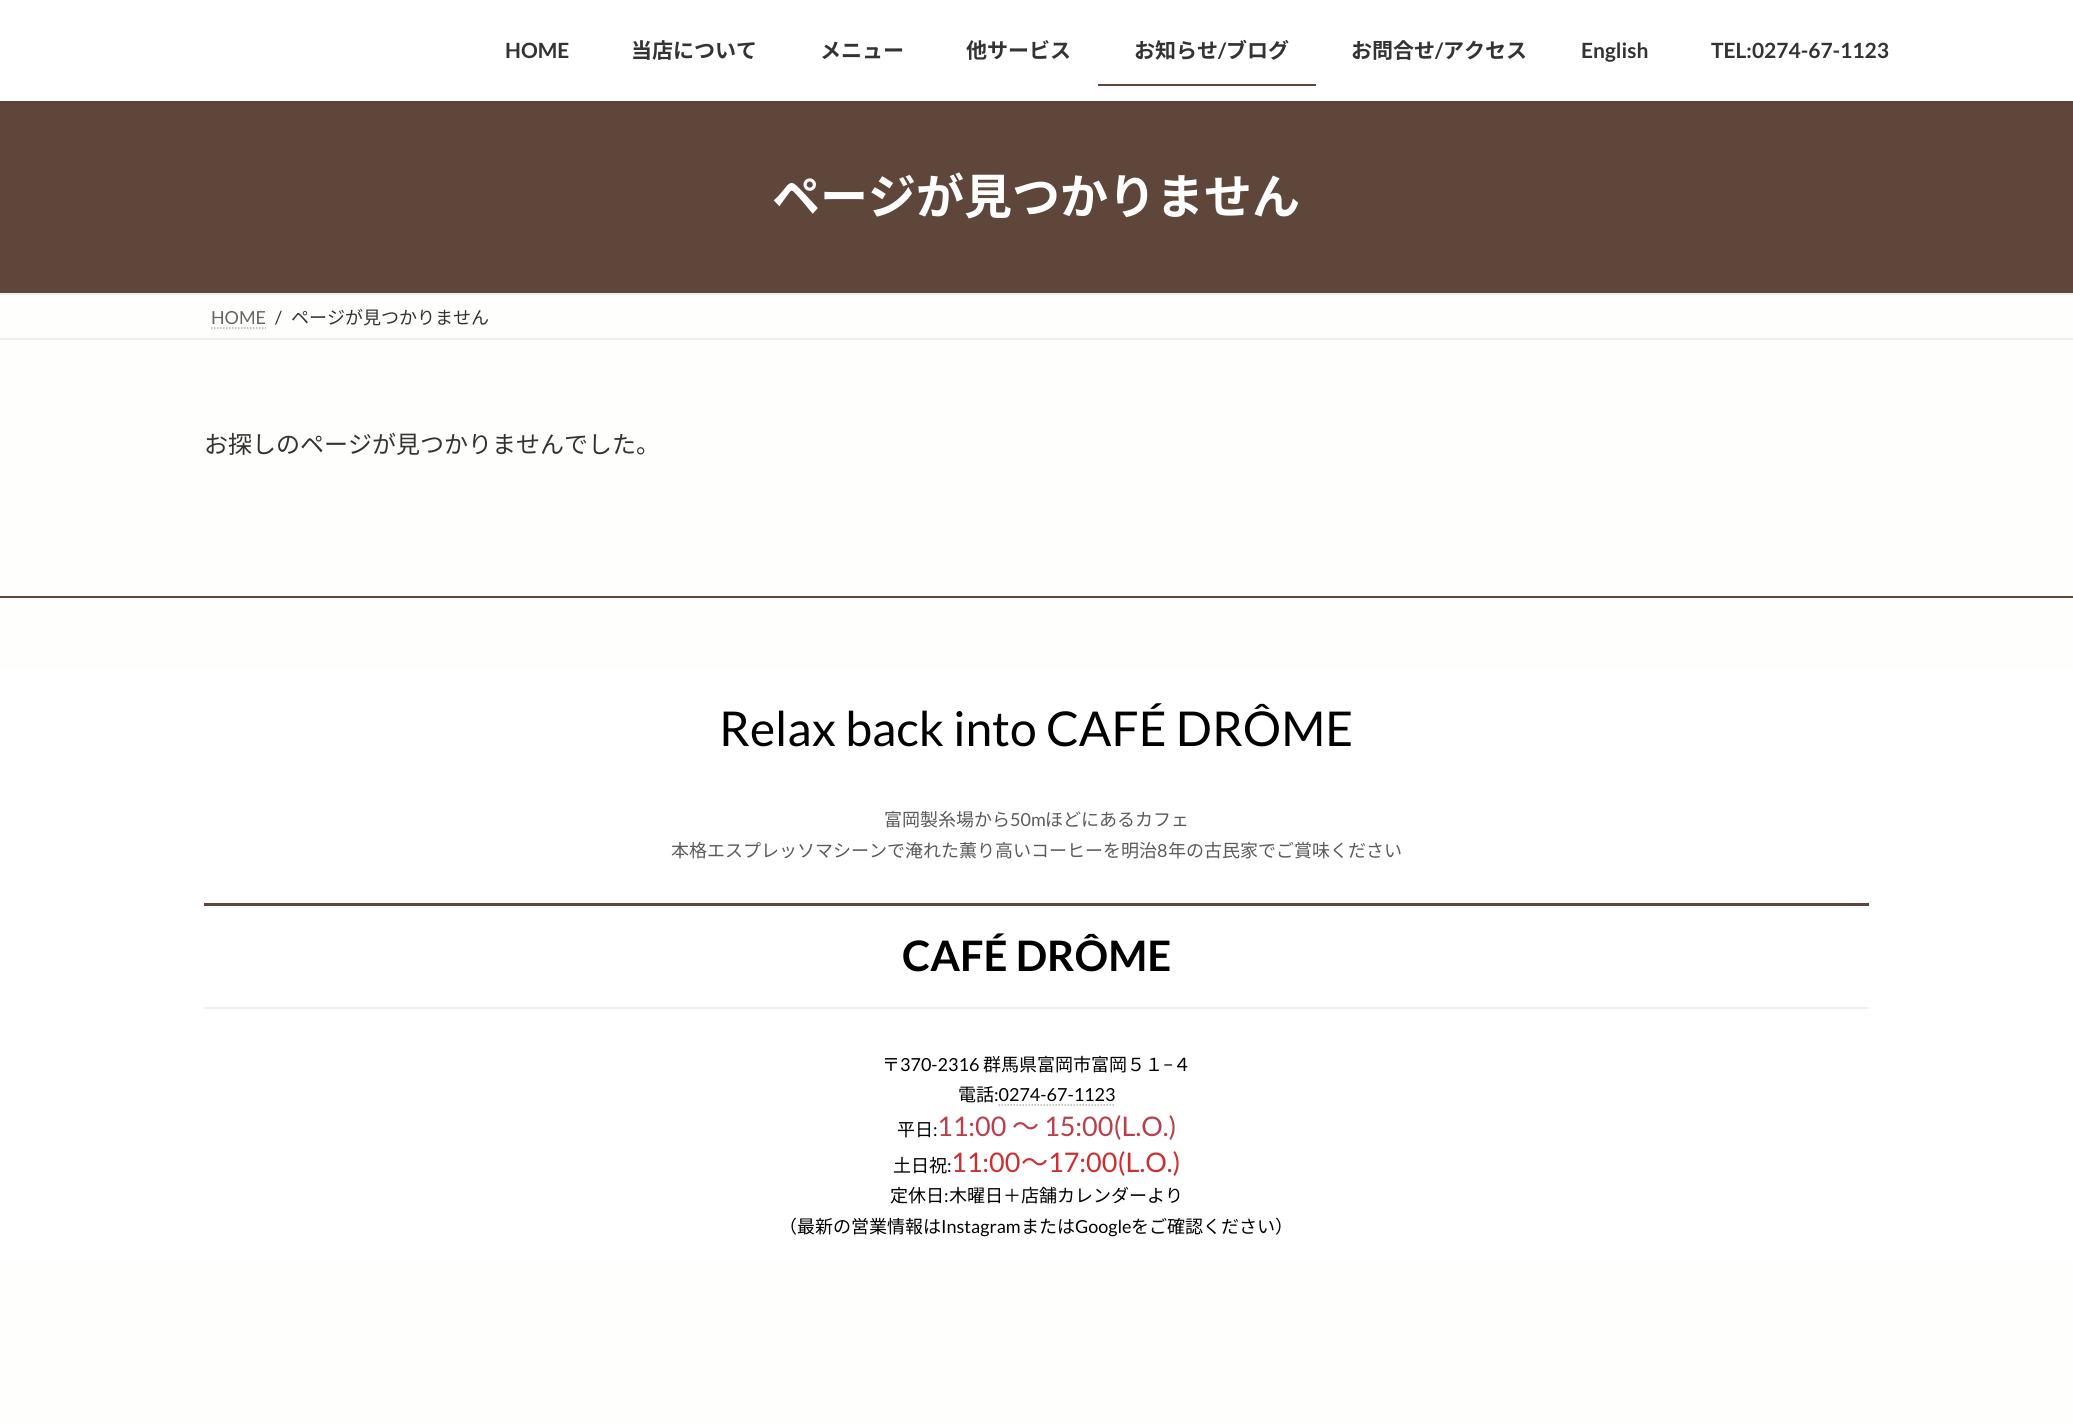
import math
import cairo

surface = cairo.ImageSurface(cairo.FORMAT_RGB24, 2073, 1424)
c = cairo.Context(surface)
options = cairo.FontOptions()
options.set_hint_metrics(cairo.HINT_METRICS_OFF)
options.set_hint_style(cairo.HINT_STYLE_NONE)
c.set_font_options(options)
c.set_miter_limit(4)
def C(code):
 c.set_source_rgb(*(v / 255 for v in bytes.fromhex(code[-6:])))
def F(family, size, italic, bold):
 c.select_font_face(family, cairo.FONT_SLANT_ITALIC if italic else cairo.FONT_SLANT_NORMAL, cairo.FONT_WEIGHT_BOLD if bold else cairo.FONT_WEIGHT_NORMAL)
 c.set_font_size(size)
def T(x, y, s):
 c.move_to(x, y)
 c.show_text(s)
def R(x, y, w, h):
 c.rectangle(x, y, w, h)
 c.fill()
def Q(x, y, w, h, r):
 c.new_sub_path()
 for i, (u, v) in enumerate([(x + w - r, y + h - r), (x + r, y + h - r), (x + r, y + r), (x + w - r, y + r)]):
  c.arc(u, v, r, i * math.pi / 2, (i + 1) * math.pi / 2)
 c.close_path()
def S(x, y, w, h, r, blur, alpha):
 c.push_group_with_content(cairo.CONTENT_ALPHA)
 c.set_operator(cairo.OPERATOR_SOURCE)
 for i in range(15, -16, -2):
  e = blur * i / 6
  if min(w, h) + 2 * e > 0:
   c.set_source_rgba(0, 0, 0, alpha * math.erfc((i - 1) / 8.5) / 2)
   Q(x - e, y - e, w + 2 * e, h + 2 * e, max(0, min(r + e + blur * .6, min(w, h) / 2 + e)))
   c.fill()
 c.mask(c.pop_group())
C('fefffc')
c.paint()
C('5e473a')
R(0,101,2073,192)
C('000000')
S(0,2,2073,100,0,2,.05)
C('ffffff')
R(0,0,2073,101)
F('Lato',21,0,1)
C('333333')
T(505,58,'HOME')
F('Noto Sans JP',21,0,1)
T(631,58,'当店について')
T(820,58,'メニュー')
T(966,58,'他サービス')
T(1134,58,'お知らせ')
F('Lato',21,0,1)
T(1218,58,'/')
F('Noto Sans JP',21,0,1)
T(1226,58,'ブログ')
C('5e473a')
R(1098,84,218,2)
C('333333')
T(1351,58,'お問合せ')
F('Lato',21,0,1)
T(1435,58,'/')
F('Noto Sans JP',21,0,1)
T(1443,58,'アクセス')
F('Lato',21,0,1)
T(1581,58,'English')
T(1711,58,'TEL:0274-67-1123')
F('Noto Sans JP',48,0,1)
C('ffffff')
T(772,214,'ページが見つかりません')
C('eff0ed')
R(0,293,2073,2)
R(0,338,2073,2)
F('Lato',18,0,0)
C('666666')
T(211,324,'HOME')
c.new_path()
c.move_to(211,328)
c.line_to(266,328)
C('b2b3b0')
c.set_line_width(1.5)
c.set_dash([1.5,1.5])
c.stroke()
C('333333')
T(275,324,'/')
F('Noto Sans JP',18,0,0)
T(291,324,'ページが見つかりません')
F('Noto Sans JP',24,0,0)
T(204,453,'お探しのページが見つかりませんでした。')
C('5e473a')
R(0,596,2073,2)
C('ffffff')
R(0,669,2073,591)
F('Lato',48,0,0)
C('000000')
T(719,746,'Relax back into CAFÉ DRÔME')
F('Noto Sans JP',18,0,0)
C('5b5b5b')
T(884,826,'富岡製糸場から')
F('Lato',18,0,0)
T(1010,826,'50m')
F('Noto Sans JP',18,0,0)
T(1045,826,'ほどにあるカフェ')
T(671,857,'本格エスプレッソマシーンで淹れた薫り高いコーヒーを明治')
F('Lato',18,0,0)
T(1157,857,'8')
F('Noto Sans JP',18,0,0)
T(1168,857,'年の古民家でご賞味ください')
C('5e473a')
R(204,903,1665,3)
C('f0f0f0')
R(204,1007,1665,2)
F('Lato',42,0,1)
C('000000')
T(902,971,'CAFÉ DRÔME')
F('Noto Sans JP',18,0,0)
T(882,1071,'〒')
F('Lato',18,0,0)
T(900,1071,'370-2316')
F('Noto Sans JP',18,0,0)
T(983,1071,'群馬県富岡市富岡５１')
F('Lato',18,0,0)
T(1163,1071,'−')
F('Noto Sans JP',18,0,0)
T(1173,1071,'４')
T(958,1101,'電話')
F('Lato',18,0,0)
T(994,1101,':0274-67-1123')
c.new_path()
c.move_to(998.5,1105)
c.line_to(1115,1105)
C('b3b3b3')
c.stroke()
F('Noto Sans JP',18,0,0)
C('000000')
T(897,1136,'平日')
F('Lato',27,0,0)
C('bb3e4a')
T(937,1136,'11:00')
F('Noto Sans JP',27,0,0)
T(1012,1136,'〜')
F('Lato',27,0,0)
T(1044,1136,'15:00(L.O.)')
F('Lato',18,0,0)
C('000000')
T(933,1136,':')
F('Noto Sans JP',18,0,0)
T(893,1172,'土日祝')
F('Lato',27,0,0)
C('cf2e2e')
T(951,1172,'11:00')
F('Noto Sans JP',27,0,0)
T(1021,1172,'～')
F('Lato',27,0,0)
T(1048,1172,'17:00(L.O.)')
F('Lato',18,0,0)
C('000000')
T(947,1172,':')
F('Noto Sans JP',18,0,0)
T(890,1202,'定休日')
F('Lato',18,0,0)
T(944,1202,':')
F('Noto Sans JP',18,0,0)
T(949,1202,'木曜日＋店舗カレンダーより')
T(779,1233,'（最新の営業情報は')
F('Lato',18,0,0)
T(941,1233,'Instagram')
F('Noto Sans JP',18,0,0)
T(1021,1233,'または')
F('Lato',18,0,0)
T(1075,1233,'Google')
F('Noto Sans JP',18,0,0)
T(1131,1233,'をご確認ください）')
surface.write_to_png('o.png')
